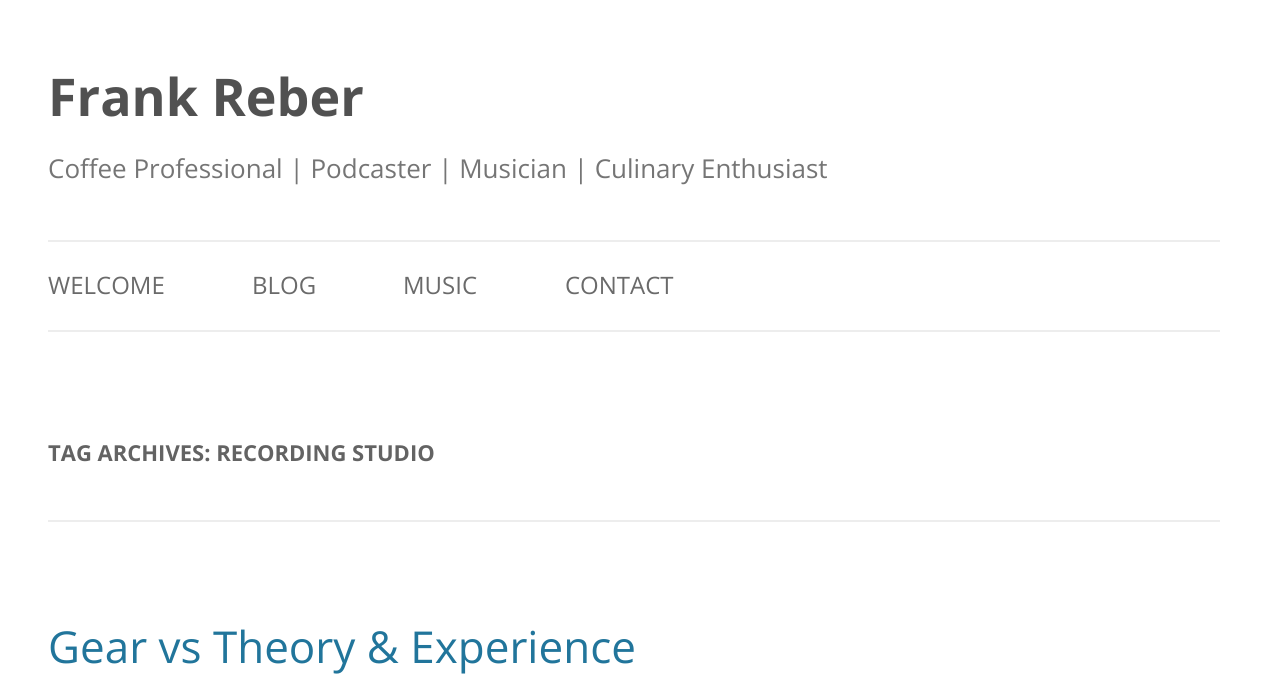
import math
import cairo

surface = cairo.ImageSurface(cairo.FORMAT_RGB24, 1268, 678)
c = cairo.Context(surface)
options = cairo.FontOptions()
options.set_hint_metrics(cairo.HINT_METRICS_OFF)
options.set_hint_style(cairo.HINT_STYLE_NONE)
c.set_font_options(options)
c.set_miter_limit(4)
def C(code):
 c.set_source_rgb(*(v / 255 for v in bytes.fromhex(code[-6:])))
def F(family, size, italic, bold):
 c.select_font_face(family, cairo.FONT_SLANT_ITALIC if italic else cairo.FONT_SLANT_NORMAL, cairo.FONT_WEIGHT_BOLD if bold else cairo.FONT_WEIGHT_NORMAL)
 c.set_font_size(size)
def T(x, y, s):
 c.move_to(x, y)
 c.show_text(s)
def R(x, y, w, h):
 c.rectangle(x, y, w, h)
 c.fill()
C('ffffff')
c.paint()
F('Open Sans',52,0,1)
C('515151')
T(48,116,'Frank Reber')
F('Open Sans',26,0,0)
C('757575')
T(48,178,'Coffee Professional | Podcaster | Musician | Culinary Enthusiast')
C('ededed')
R(48,240,1172,2)
R(48,330,1172,2)
F('Open Sans',24,0,0)
C('6a6a6a')
T(48,294,'WELCOME')
T(252,294,'BLOG')
T(403,294,'MUSIC')
T(565,294,'CONTACT')
C('ededed')
R(48,520,1172,2)
F('Open Sans',22,0,1)
C('636363')
T(48,461,'TAG ARCHIVES: RECORDING STUDIO')
F('Open Sans',44,0,0)
C('21759b')
T(48,663,'Gear vs Theory & Experience')
surface.write_to_png('o.png')
